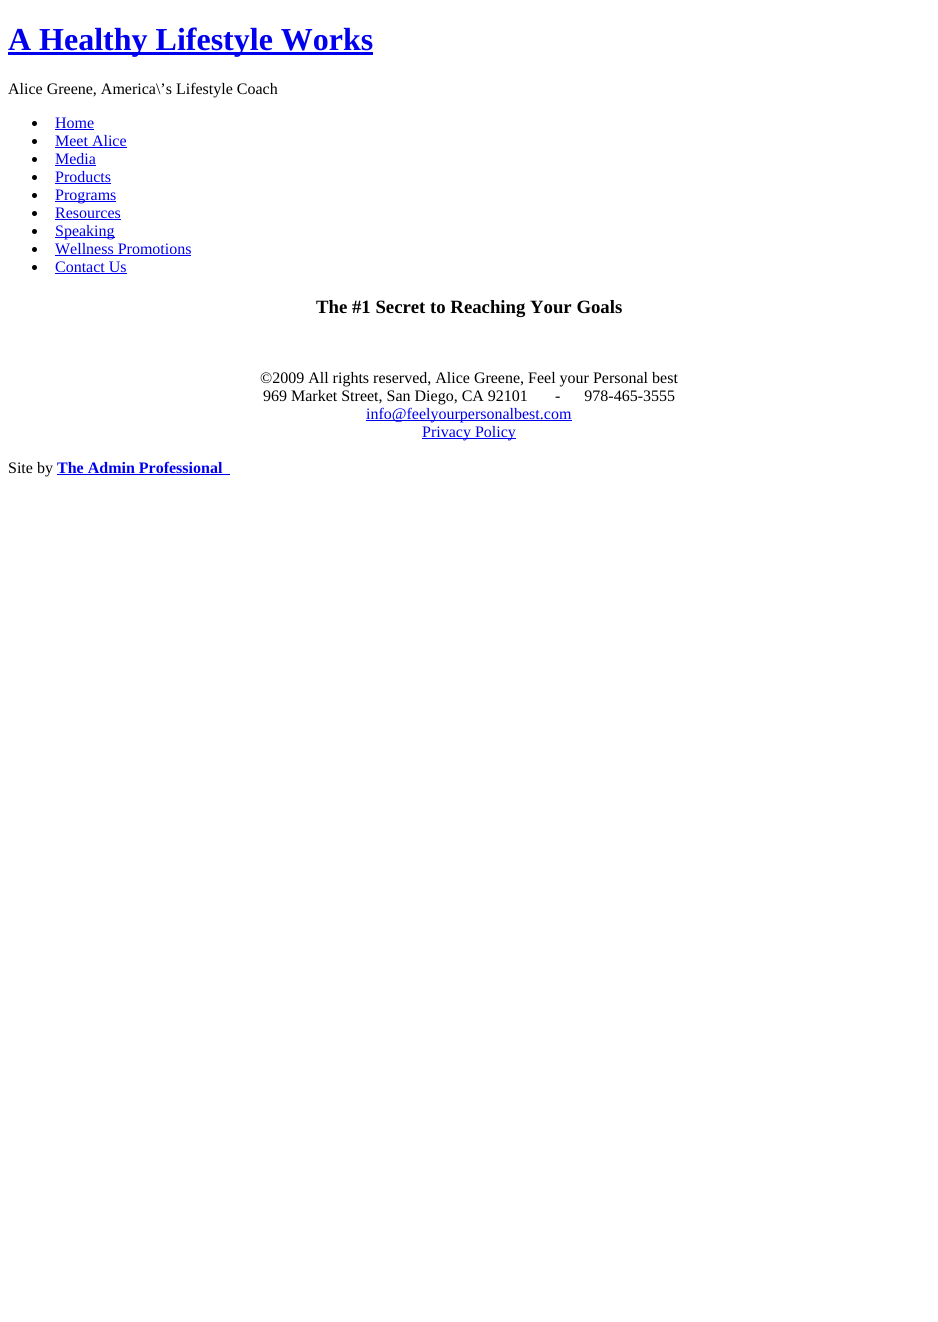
import math
import cairo

surface = cairo.ImageSurface(cairo.FORMAT_RGB24, 938, 1322)
c = cairo.Context(surface)
options = cairo.FontOptions()
options.set_hint_metrics(cairo.HINT_METRICS_OFF)
options.set_hint_style(cairo.HINT_STYLE_NONE)
c.set_font_options(options)
c.set_miter_limit(4)
def C(code):
 c.set_source_rgb(*(v / 255 for v in bytes.fromhex(code[-6:])))
def F(family, size, italic, bold):
 c.select_font_face(family, cairo.FONT_SLANT_ITALIC if italic else cairo.FONT_SLANT_NORMAL, cairo.FONT_WEIGHT_BOLD if bold else cairo.FONT_WEIGHT_NORMAL)
 c.set_font_size(size)
def T(x, y, s):
 c.move_to(x, y)
 c.show_text(s)
def R(x, y, w, h):
 c.rectangle(x, y, w, h)
 c.fill()
C('ffffff')
c.paint()
C('0000ee')
R(8,52,365,3)
F('Liberation Serif',32,0,1)
T(8,50,'A Healthy Lifestyle Works')
F('Liberation Serif',16,0,0)
C('000000')
T(8,94,'Alice Greene, America\\’s Lifestyle Coach')
c.new_path()
c.arc(34.5,123.5,2.5,0,2 * math.pi)
c.fill()
C('0000ee')
T(55,128,'Home')
R(55,129,39,1)
C('000000')
c.new_path()
c.arc(34.5,141.5,2.5,0,2 * math.pi)
c.fill()
C('0000ee')
T(55,146,'Meet Alice')
R(55,147,72,1)
C('000000')
c.new_path()
c.arc(34.5,159.5,2.5,0,2 * math.pi)
c.fill()
C('0000ee')
T(55,164,'Media')
R(55,165,41,1)
C('000000')
c.new_path()
c.arc(34.5,177.5,2.5,0,2 * math.pi)
c.fill()
C('0000ee')
T(55,182,'Products')
R(55,183,56,1)
C('000000')
c.new_path()
c.arc(34.5,195.5,2.5,0,2 * math.pi)
c.fill()
C('0000ee')
R(55,201,61,1)
T(55,200,'Programs')
C('000000')
c.new_path()
c.arc(34.5,213.5,2.5,0,2 * math.pi)
c.fill()
C('0000ee')
T(55,218,'Resources')
R(55,219,66,1)
C('000000')
c.new_path()
c.arc(34.5,231.5,2.5,0,2 * math.pi)
c.fill()
C('0000ee')
R(55,237,60,1)
T(55,236,'Speaking')
C('000000')
c.new_path()
c.arc(34.5,249.5,2.5,0,2 * math.pi)
c.fill()
C('0000ee')
T(55,254,'Wellness Promotions')
R(55,255,136,1)
C('000000')
c.new_path()
c.arc(34.5,267.5,2.5,0,2 * math.pi)
c.fill()
C('0000ee')
T(55,272,'Contact Us')
R(55,273,72,1)
F('Liberation Serif',18.75,0,1)
C('000000')
T(316,313,'The #1 Secret to Reaching Your Goals')
F('Liberation Serif',16,0,0)
T(260,383,'©2009 All rights reserved, Alice Greene, Feel your Personal best')
T(263,401,'969 Market Street, San Diego, CA 92101')
T(555,401,'-      978-465-3555')
C('0000ee')
R(366,420,206,1)
T(366,419,'info@feelyourpersonalbest.com')
R(422,438,94,1)
T(422,437,'Privacy Policy')
C('000000')
T(8,473,'Site by')
F('Liberation Serif',16,0,1)
C('0000ee')
T(57,473,'The Admin Professional')
R(57,474,173,1)
surface.write_to_png('o.png')
